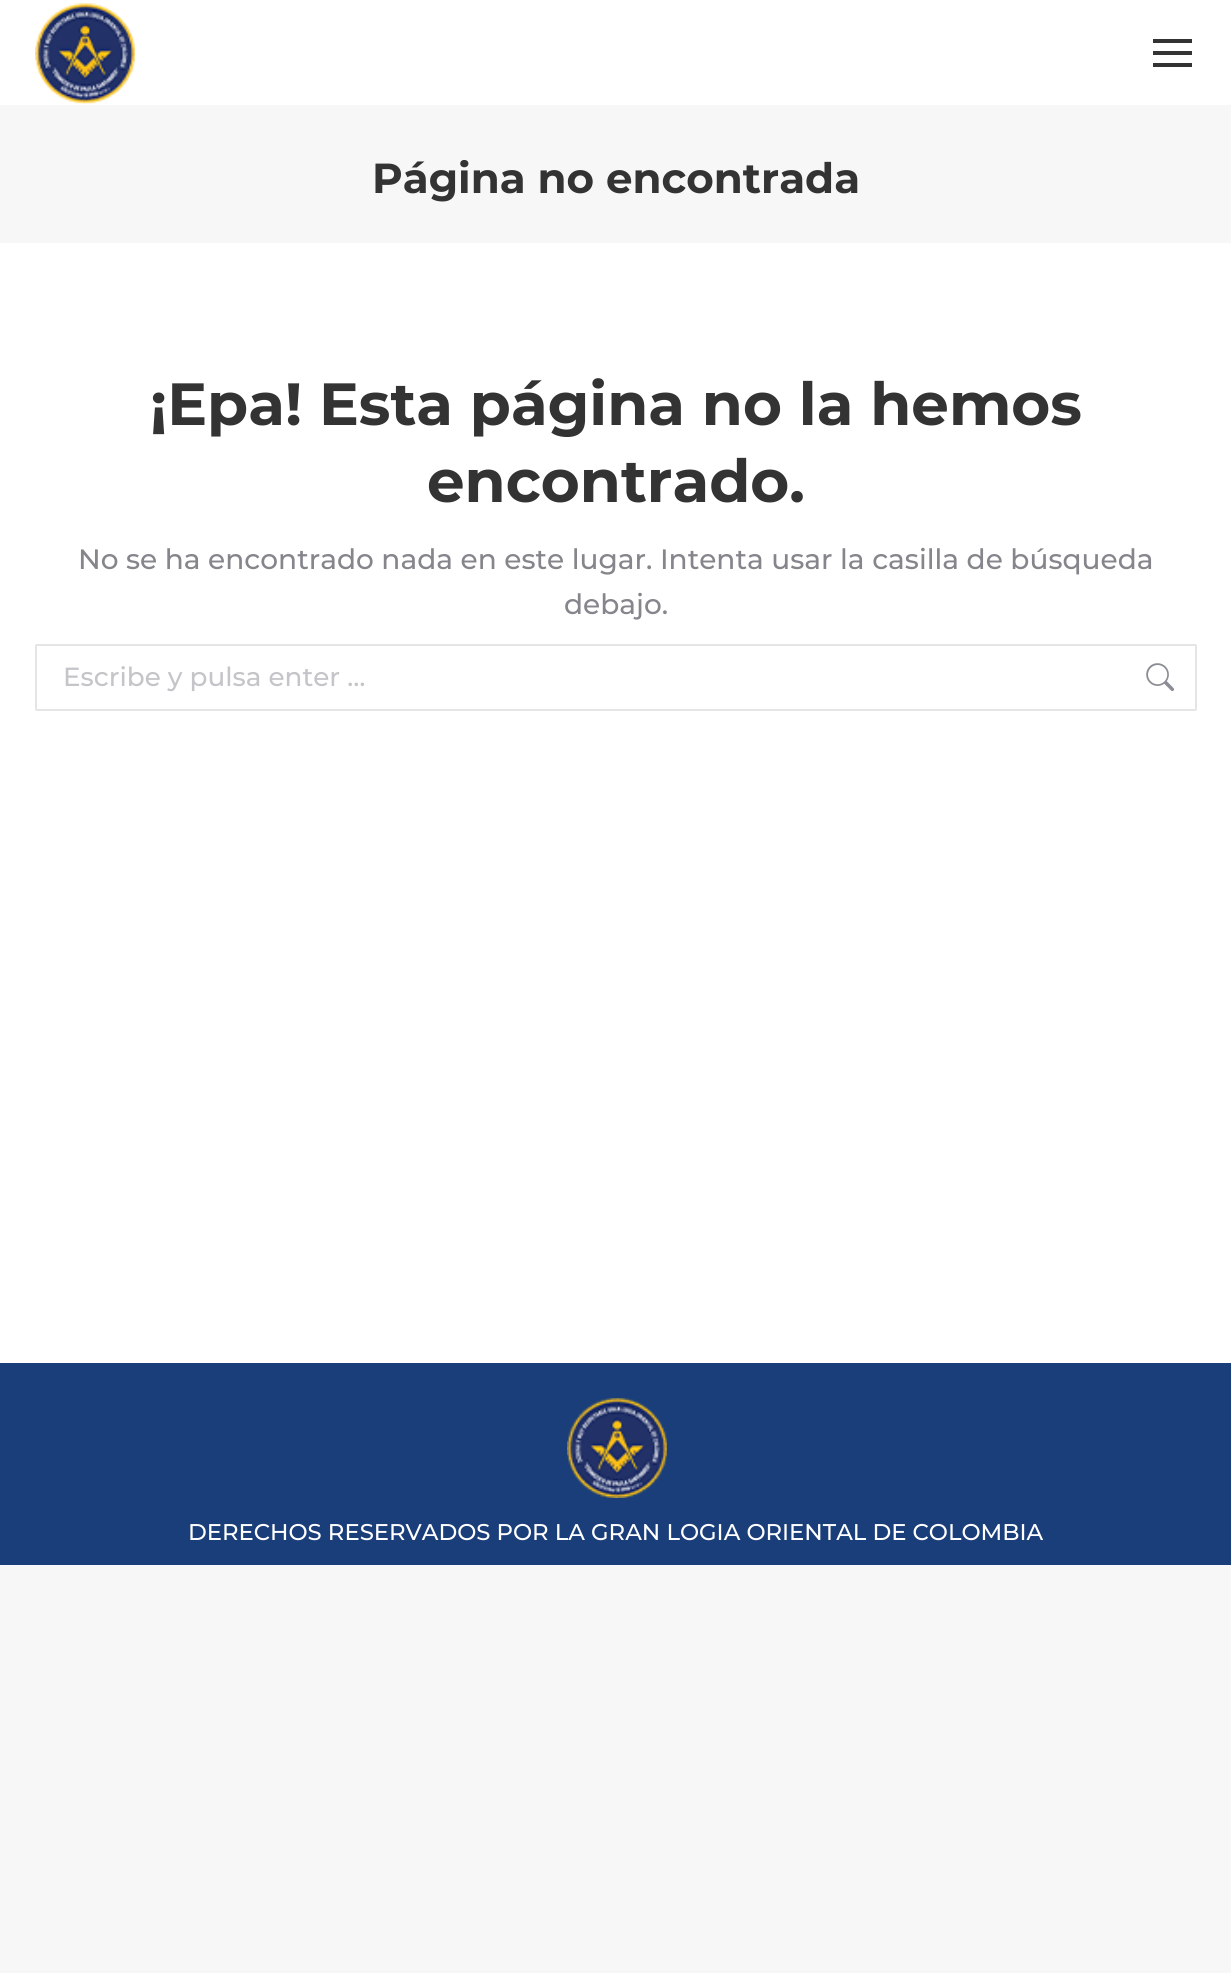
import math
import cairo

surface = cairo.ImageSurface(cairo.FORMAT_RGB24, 1231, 1973)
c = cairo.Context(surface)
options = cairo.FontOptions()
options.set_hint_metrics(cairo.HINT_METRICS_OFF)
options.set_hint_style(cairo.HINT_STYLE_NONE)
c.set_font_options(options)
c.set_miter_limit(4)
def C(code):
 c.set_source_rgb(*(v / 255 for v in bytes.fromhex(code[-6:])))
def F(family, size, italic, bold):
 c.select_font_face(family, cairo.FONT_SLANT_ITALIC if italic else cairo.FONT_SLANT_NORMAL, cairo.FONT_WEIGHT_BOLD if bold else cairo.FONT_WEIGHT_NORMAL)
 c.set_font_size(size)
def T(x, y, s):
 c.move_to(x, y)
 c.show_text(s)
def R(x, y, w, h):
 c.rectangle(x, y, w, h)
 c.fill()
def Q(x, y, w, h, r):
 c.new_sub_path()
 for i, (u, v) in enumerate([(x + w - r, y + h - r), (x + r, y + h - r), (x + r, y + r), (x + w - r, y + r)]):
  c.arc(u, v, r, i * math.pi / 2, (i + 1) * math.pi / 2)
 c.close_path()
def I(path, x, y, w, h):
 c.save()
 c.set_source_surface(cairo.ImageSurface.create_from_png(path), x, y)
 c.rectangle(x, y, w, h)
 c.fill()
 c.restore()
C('f7f7f7')
c.paint()
C('ffffff')
R(0,0,1231,1363)
I('1.png',35,3,100,101)
C('333333')
R(1153,39,39,4)
R(1153,51,39,4)
R(1153,63,39,4)
C('f7f7f7')
R(0,105,1231,138)
F('Montserrat',42,0,1)
C('333333')
T(372,193,'Página no encontrada')
F('Montserrat',59.5,0,1)
T(150,425,'¡Epa! Esta página no la hemos')
T(427,502,'encontrado.')
F('Montserrat Medium',28,0,0)
C('85868c')
T(78,569,'No se ha encontrado nada en este lugar. Intenta usar la casilla de búsqueda')
T(564,614,'debajo.')
Q(36,645,1160,65,1)
C('e5e5e5')
c.stroke()
F('Montserrat Medium',26.25,0,0)
C('c4c5c9')
T(63,686,'Escribe y pulsa enter …')
I('2.png',1146,663,28,28)
C('1a3e7a')
R(0,1363,1231,202)
I('3.png',567,1398,100,100)
F('Montserrat Medium',22.75,0,0)
C('ffffff')
T(188,1540,'DERECHOS RESERVADOS POR LA GRAN LOGIA ORIENTAL DE COLOMBIA')
surface.write_to_png('o.png')
